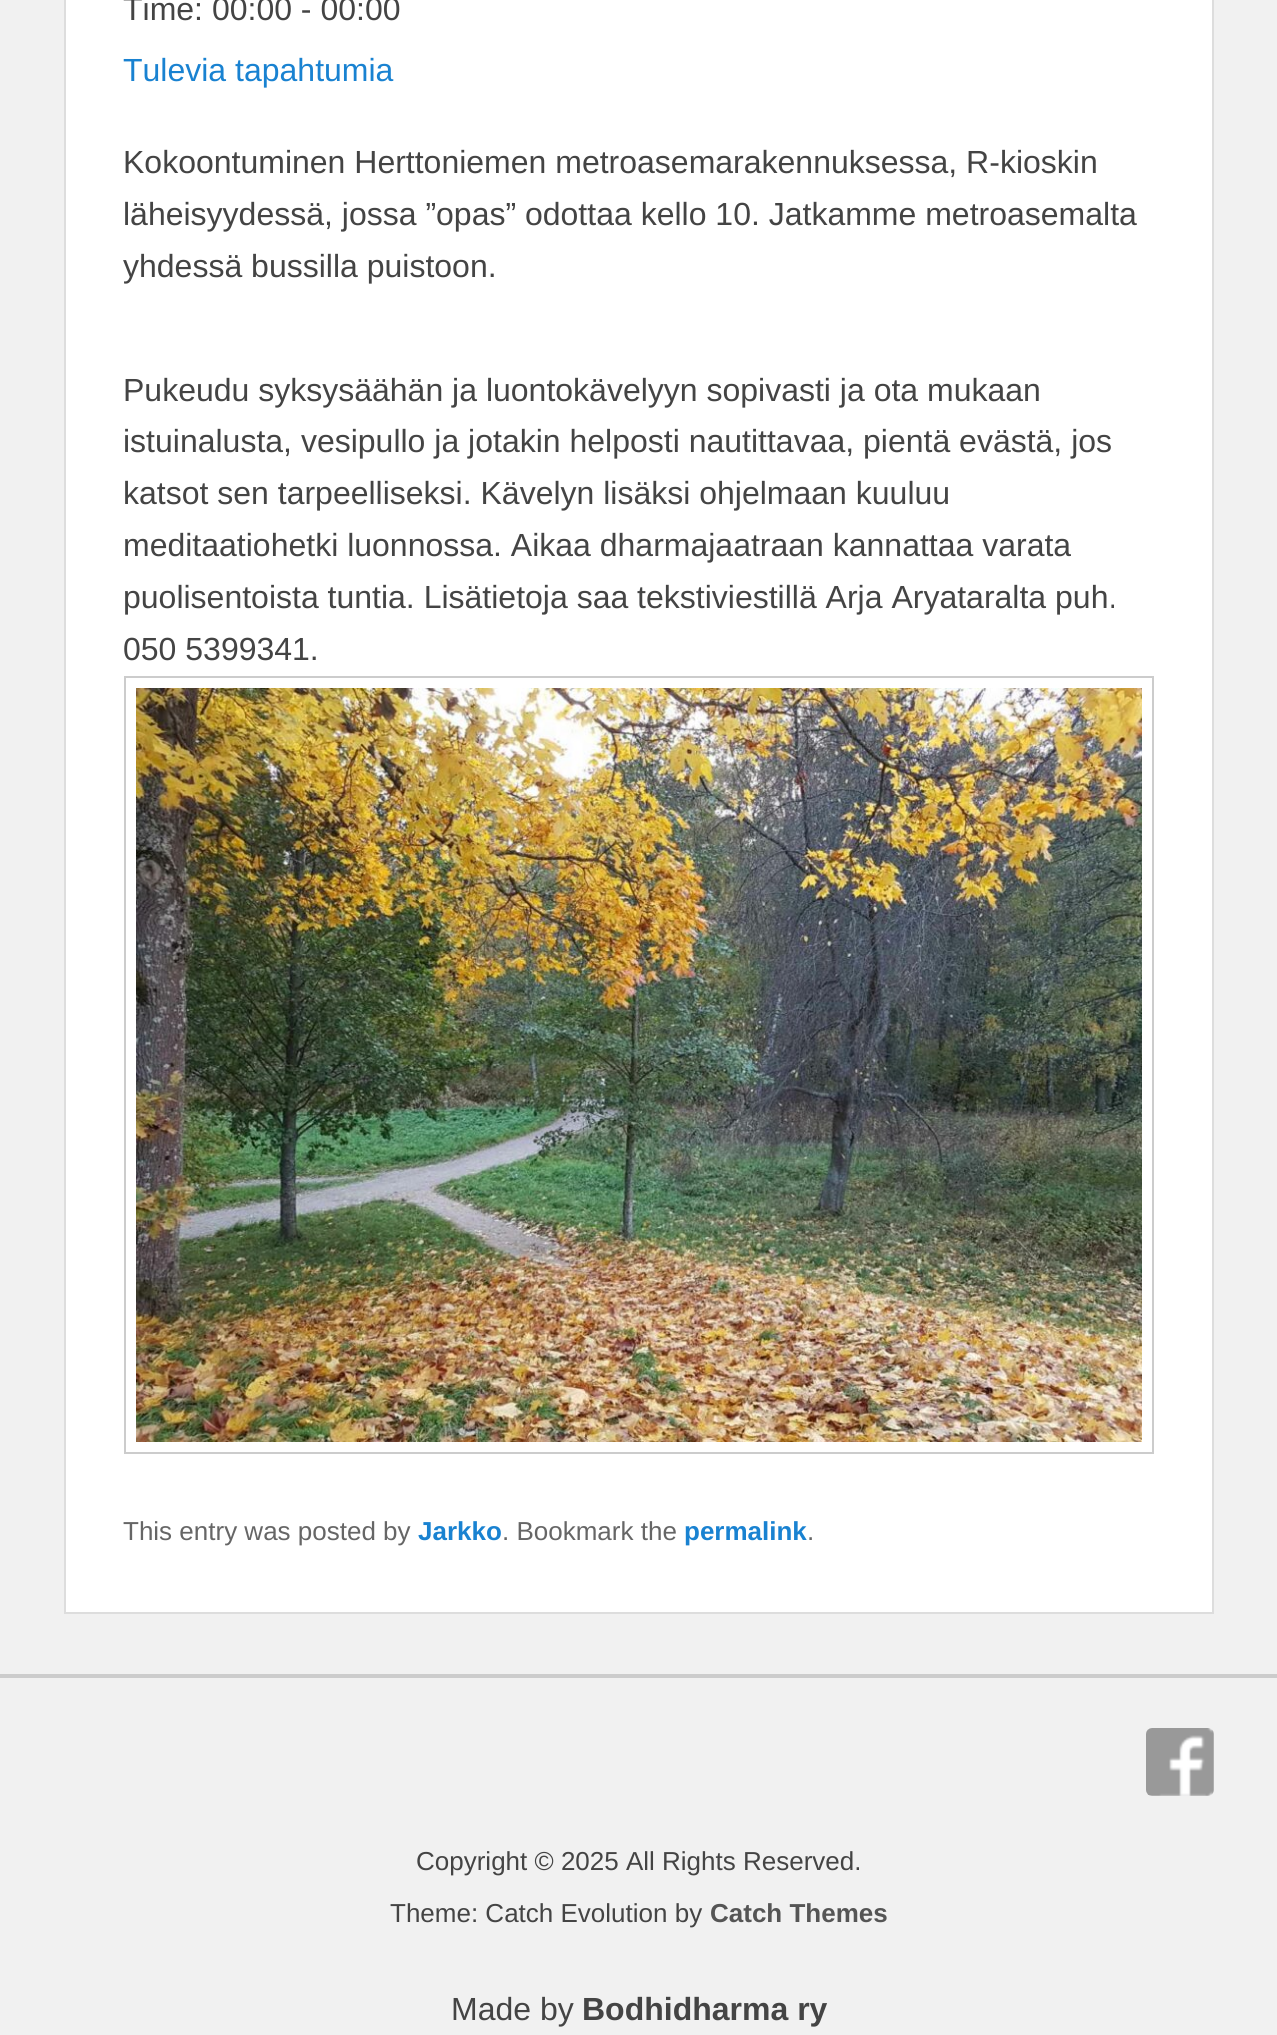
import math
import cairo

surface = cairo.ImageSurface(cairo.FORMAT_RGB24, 1277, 2035)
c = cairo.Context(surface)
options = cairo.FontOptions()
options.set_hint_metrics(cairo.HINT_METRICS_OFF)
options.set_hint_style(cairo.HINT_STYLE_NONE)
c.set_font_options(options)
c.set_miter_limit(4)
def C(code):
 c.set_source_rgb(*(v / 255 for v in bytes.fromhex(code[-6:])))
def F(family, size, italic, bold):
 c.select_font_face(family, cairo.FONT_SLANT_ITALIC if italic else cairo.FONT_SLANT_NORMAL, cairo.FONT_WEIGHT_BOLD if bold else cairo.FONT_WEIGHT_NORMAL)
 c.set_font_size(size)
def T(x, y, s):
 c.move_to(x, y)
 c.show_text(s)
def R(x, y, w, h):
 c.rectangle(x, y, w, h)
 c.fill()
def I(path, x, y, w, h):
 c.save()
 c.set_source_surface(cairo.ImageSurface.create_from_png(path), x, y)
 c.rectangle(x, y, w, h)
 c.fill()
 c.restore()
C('f1f1f1')
c.paint()
C('ffffff')
c.rectangle(65,-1,1148,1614)
c.fill_preserve()
C('dddddd')
c.stroke()
F('Liberation Sans',32,0,0)
C('444444')
T(123,20,'Time: 00:00 - 00:00')
C('1982d1')
T(123,81,'Tulevia tapahtumia')
C('444444')
T(123,173,'Kokoontuminen Herttoniemen metroasemarakennuksessa, R-kioskin')
T(123,225,'läheisyydessä, jossa ”opas” odottaa kello 10. Jatkamme metroasemalta')
T(123,277,'yhdessä bussilla puistoon.')
T(123,401,'Pukeudu syksysäähän ja luontokävelyyn sopivasti ja ota mukaan')
T(123,452,'istuinalusta, vesipullo ja jotakin helposti nautittavaa, pientä evästä, jos')
T(123,504,'katsot sen tarpeelliseksi. Kävelyn lisäksi ohjelmaan kuuluu')
T(123,556,'meditaatiohetki luonnossa. Aikaa dharmajaatraan kannattaa varata')
T(123,608,'puolisentoista tuntia. Lisätietoja saa tekstiviestillä Arja Aryataralta puh.')
T(123,660,'050 5399341.')
c.rectangle(125,677,1028,776)
C('cccccc')
c.stroke()
I('1.png',136,688,1006,754)
F('Liberation Sans',26,0,0)
C('666666')
T(123,1540,'This entry was posted by')
F('Liberation Sans',26,0,1)
C('1982d1')
T(418,1540,'Jarkko')
F('Liberation Sans',26,0,0)
C('666666')
T(502,1540,'. Bookmark the')
F('Liberation Sans',26,0,1)
C('1982d1')
T(684,1540,'permalink')
F('Liberation Sans',26,0,0)
C('666666')
T(807,1540,'.')
C('cccccc')
R(0,1674,1277,4)
I('2.png',1146,1728,68,68)
C('444444')
T(416,1870,'Copyright © 2025 All Rights Reserved.')
T(390,1922,'Theme: Catch Evolution by')
F('Liberation Sans',26,0,1)
C('555555')
T(710,1922,'Catch Themes')
F('Liberation Sans',32,0,0)
C('444444')
T(451,2020,'Made by')
F('Liberation Sans',32,0,1)
T(582,2020,'Bodhidharma ry')
surface.write_to_png('o.png')
